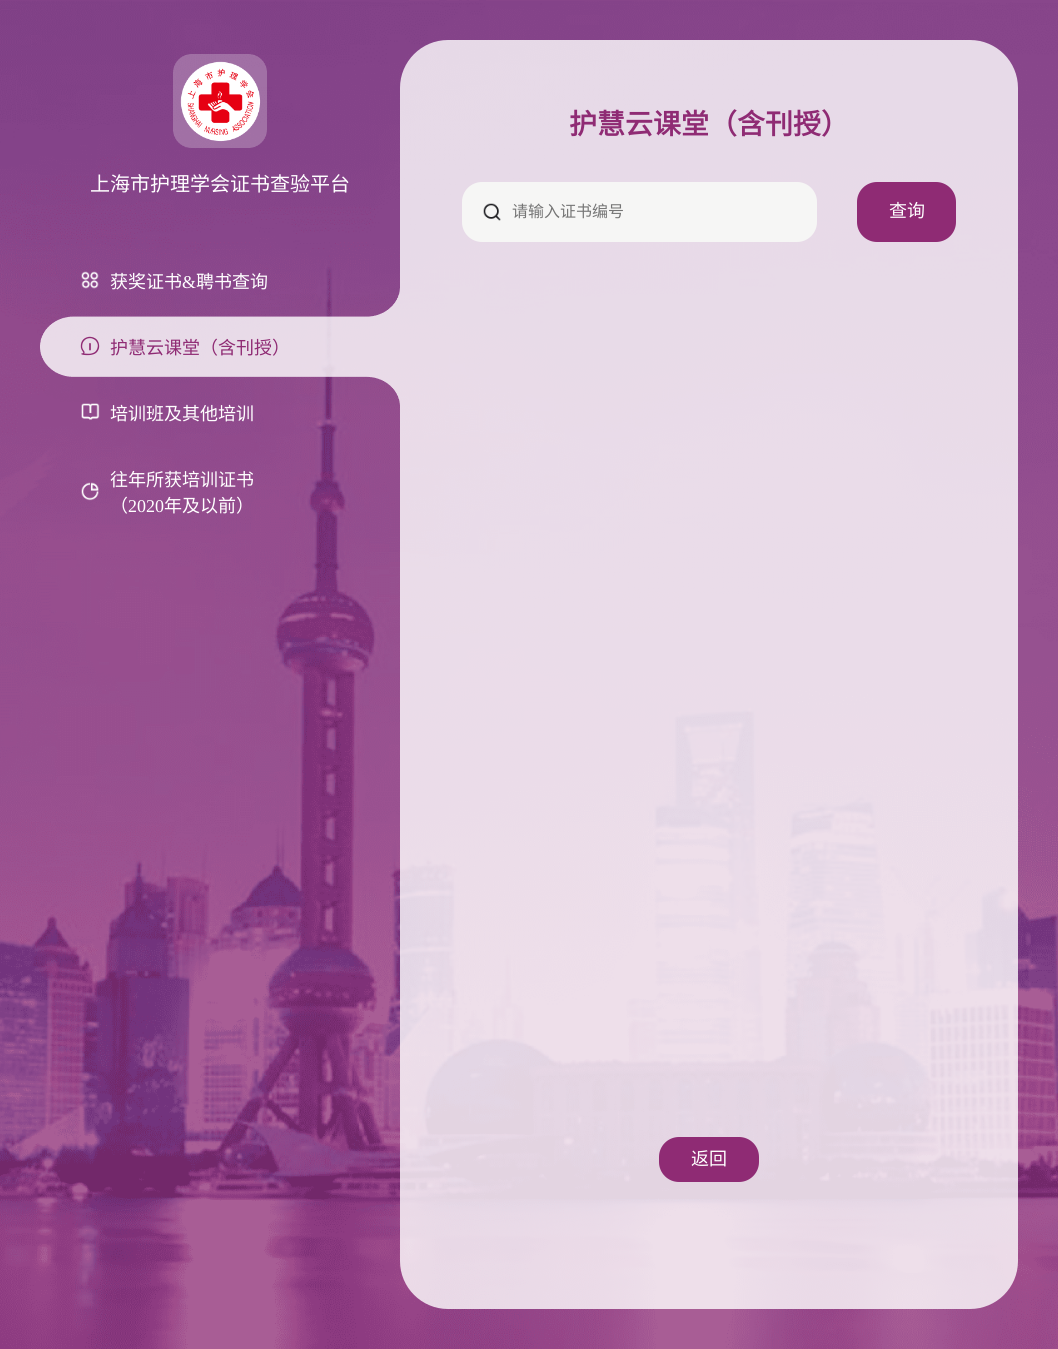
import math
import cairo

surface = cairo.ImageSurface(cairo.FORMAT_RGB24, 1058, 1349)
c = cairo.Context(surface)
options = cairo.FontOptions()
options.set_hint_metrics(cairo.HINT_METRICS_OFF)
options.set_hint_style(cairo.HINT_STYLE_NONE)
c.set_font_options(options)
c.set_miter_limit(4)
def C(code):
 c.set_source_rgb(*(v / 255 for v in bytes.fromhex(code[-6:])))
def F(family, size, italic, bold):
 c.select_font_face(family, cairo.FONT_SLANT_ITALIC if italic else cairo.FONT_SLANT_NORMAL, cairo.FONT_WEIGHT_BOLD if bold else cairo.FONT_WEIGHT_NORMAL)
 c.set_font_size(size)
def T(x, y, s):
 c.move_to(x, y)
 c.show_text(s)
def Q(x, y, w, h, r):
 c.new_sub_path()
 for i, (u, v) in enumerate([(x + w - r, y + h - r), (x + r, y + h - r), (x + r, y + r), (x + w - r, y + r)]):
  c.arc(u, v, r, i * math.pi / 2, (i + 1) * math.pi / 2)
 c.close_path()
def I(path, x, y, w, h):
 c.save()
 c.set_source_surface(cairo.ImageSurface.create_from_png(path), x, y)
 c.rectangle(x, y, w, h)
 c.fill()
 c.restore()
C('ffffff')
c.paint()
I('1.png',0,0,1058,1349)
I('2.png',173,54,94,94)
F('Noto Sans CJK SC',20,0,0)
C('ffffff')
T(90,191,'上海市护理学会证书查验平台')
I('4.png',40,288,360,117)
I('3.png',81,271,18,18)
F('Noto Sans CJK SC',18,0,0)
T(110,288,'获奖证书')
F('Liberation Serif',18,0,0)
T(182,288,'&')
F('Noto Sans CJK SC',18,0,0)
T(196,288,'聘书查询')
I('5.png',80,336,20,20)
C('8f2b74')
T(110,354,'护慧云课堂（含刊授）')
I('6.png',81,403,19,17)
C('ffffff')
T(110,420,'培训班及其他培训')
I('7.png',81,482,18,19)
T(110,486,'往年所获培训证书')
T(110,512,'（')
F('Liberation Serif',18,0,0)
T(128,512,'2020')
F('Noto Sans CJK SC',18,0,0)
T(164,512,'年及以前）')
c.set_source_rgba(1,1,1,0.8)
Q(400,40,618,1269,48)
c.fill()
F('Noto Sans CJK SC',28,0,1)
C('8f2b74')
T(569,134,'护慧云课堂（含刊授）')
C('f6f6f5')
Q(462,182,355,60,20)
c.fill()
I('8.png',483,203,18,18)
F('Noto Sans CJK SC',16,0,0)
C('757575')
T(512,217,'请输入证书编号')
C('8f2b74')
Q(857,182,99,60,20)
c.fill()
F('Noto Sans CJK SC',18,0,0)
C('ffffff')
T(889,217,'查询')
C('8f2b74')
Q(659,1137,100,45,20)
c.fill()
C('ffffff')
T(691,1165,'返回')
surface.write_to_png('o.png')
